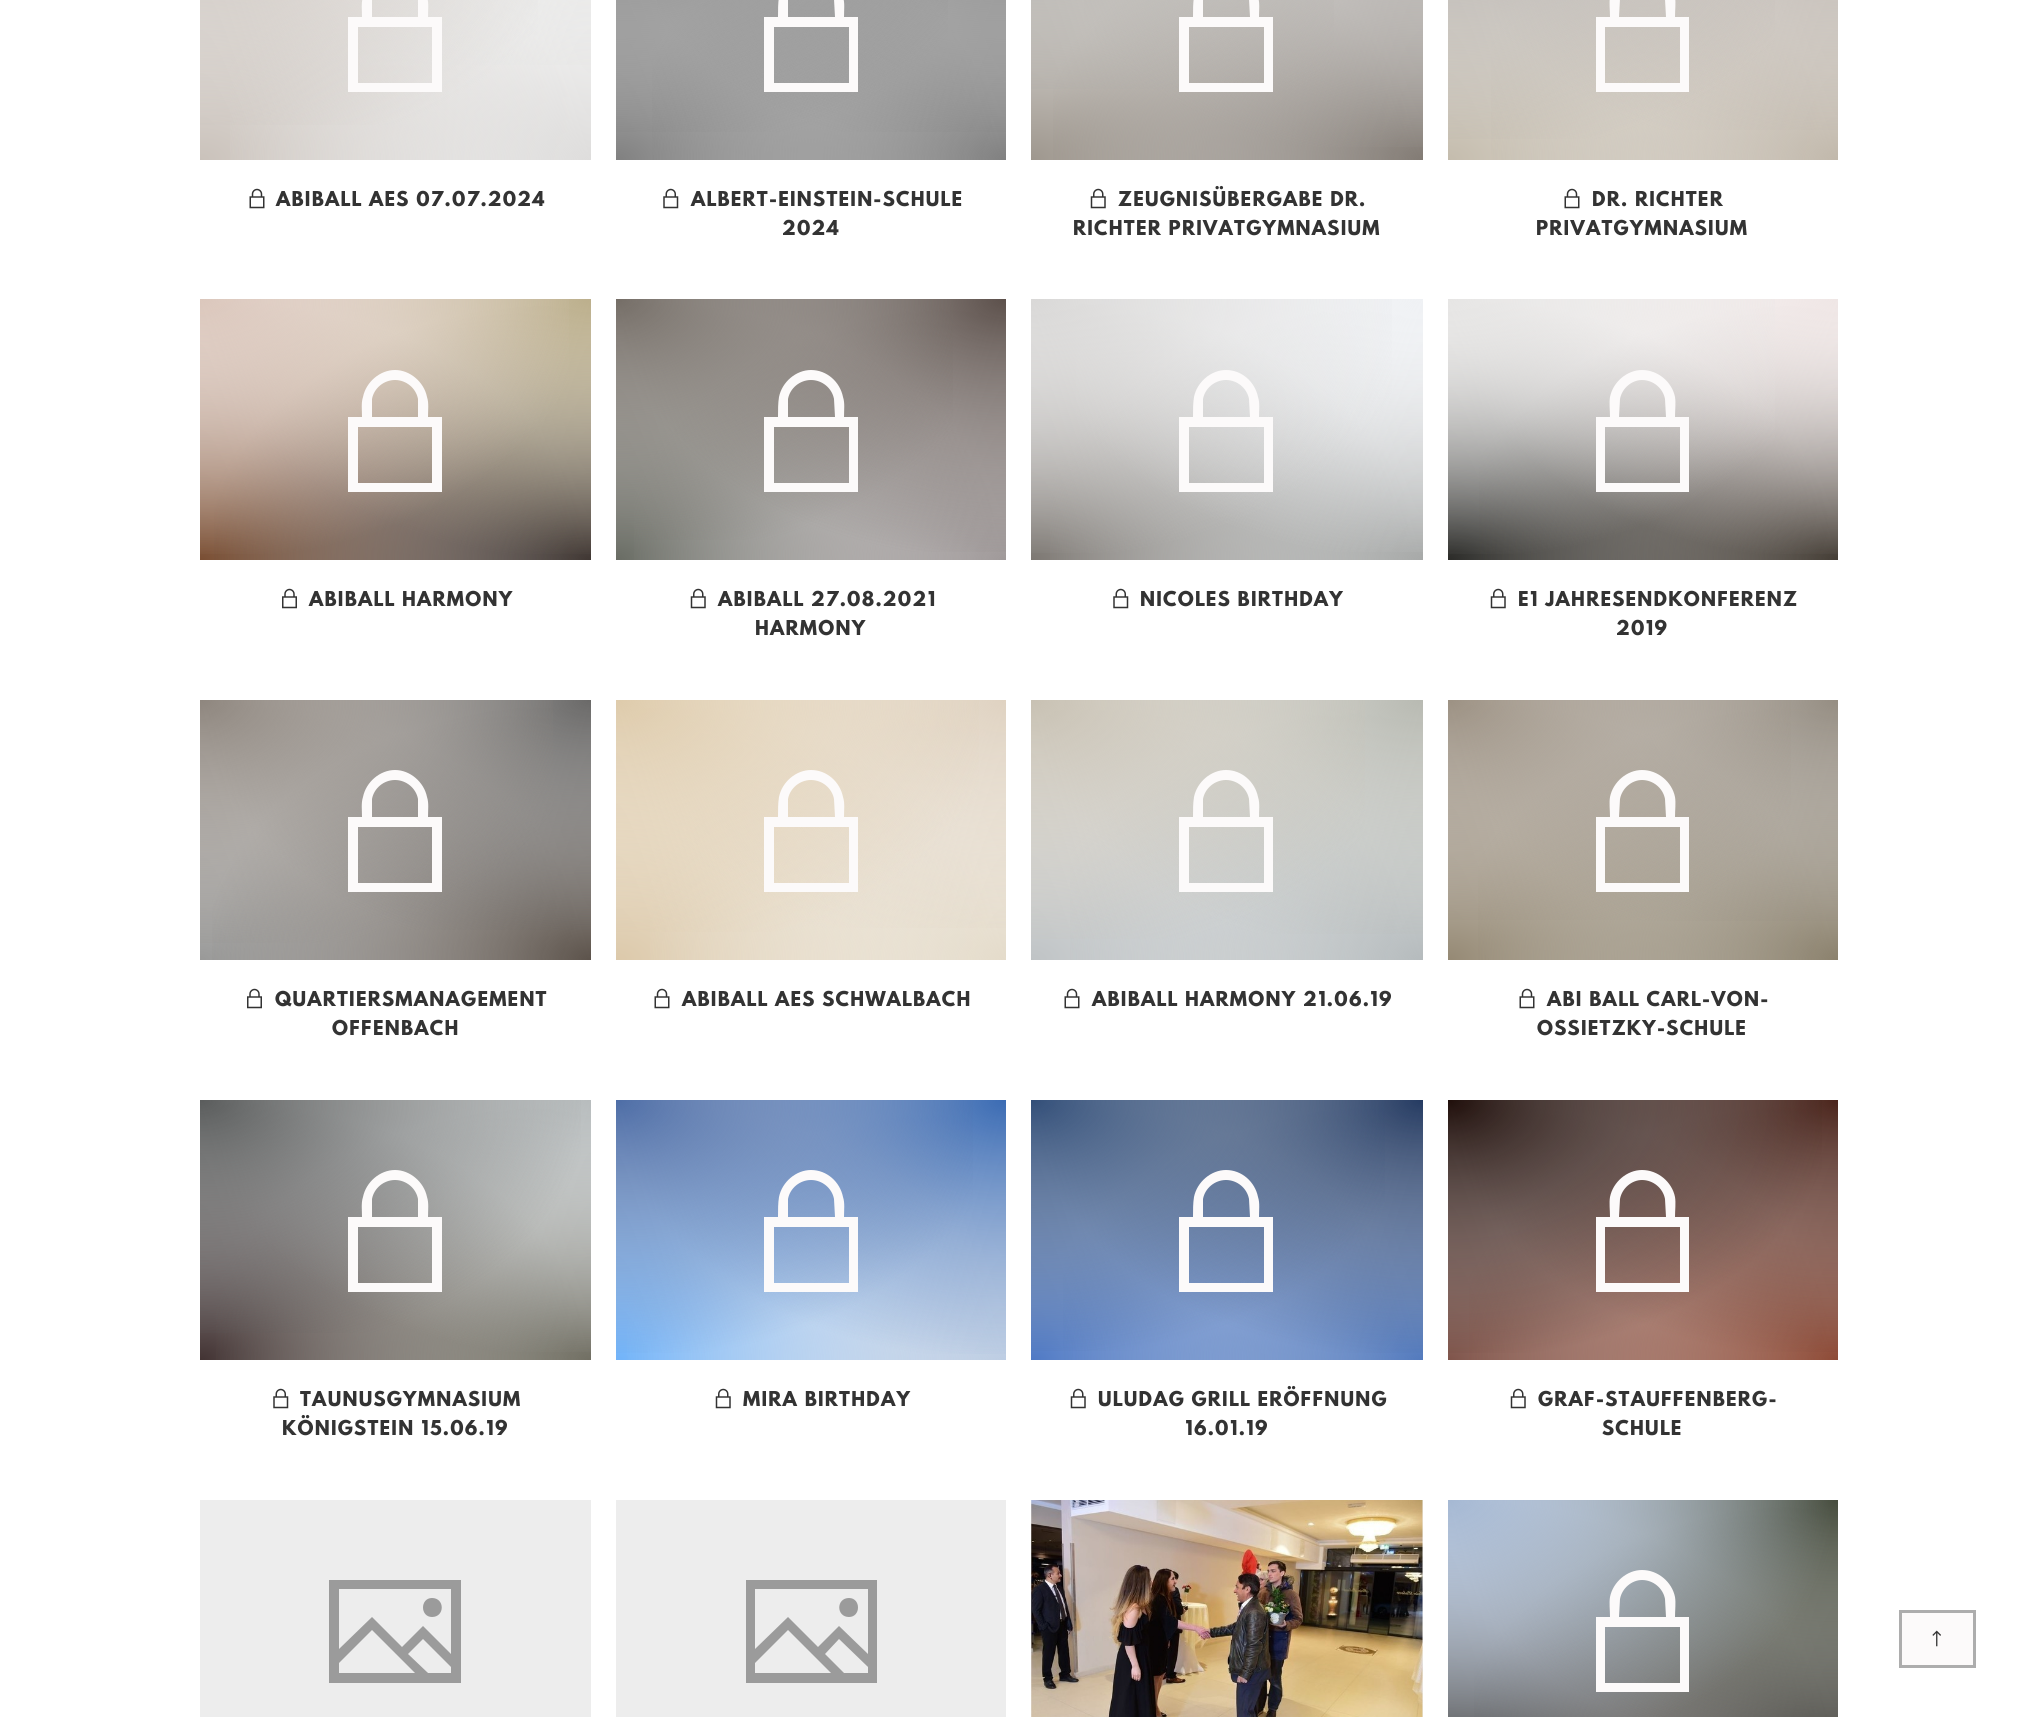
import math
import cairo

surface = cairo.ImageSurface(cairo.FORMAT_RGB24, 2037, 1717)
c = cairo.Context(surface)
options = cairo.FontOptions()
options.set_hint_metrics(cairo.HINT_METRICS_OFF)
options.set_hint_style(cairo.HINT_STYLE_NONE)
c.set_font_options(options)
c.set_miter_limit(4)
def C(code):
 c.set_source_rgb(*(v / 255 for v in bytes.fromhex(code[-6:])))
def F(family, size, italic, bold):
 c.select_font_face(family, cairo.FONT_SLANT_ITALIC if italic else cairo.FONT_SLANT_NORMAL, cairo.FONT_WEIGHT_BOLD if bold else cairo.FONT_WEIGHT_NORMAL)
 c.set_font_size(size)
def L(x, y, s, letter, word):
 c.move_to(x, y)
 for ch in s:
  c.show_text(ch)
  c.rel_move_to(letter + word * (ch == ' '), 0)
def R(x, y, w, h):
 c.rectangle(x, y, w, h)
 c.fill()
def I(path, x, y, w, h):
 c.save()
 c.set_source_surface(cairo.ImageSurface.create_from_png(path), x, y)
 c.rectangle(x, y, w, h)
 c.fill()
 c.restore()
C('ffffff')
c.paint()
gradient = cairo.RadialGradient(0,0,0,0,0,1)
gradient.set_matrix(cairo.Matrix(1 / 391, 0, 0, 1 / 261, -1 * 200 / 391, -1 * 160 / 261))
gradient.add_color_stop_rgba(0,0.792,0.761,0.733,1)
gradient.add_color_stop_rgba(1,1,1,1,1)
c.set_source(gradient)
R(200,0,376,160)
gradient = cairo.RadialGradient(0,0,0,0,0,1)
gradient.set_matrix(cairo.Matrix(1 / 391, 0, 0, 1 / 261, -1 * 591 / 391, -1 * 160 / 261))
gradient.add_color_stop_rgba(0,0.871,0.867,0.863,1)
gradient.add_color_stop_rgba(1,0.871,0.867,0.863,0)
c.set_source(gradient)
R(230,0,361,160)
gradient = cairo.RadialGradient(0,0,0,0,0,1)
gradient.set_matrix(cairo.Matrix(1 / 391, 0, 0, 1 / 261, -1 * 591 / 391, -1 * -101 / 261))
gradient.add_color_stop_rgba(0,0.902,0.902,0.898,1)
gradient.add_color_stop_rgba(1,0.902,0.902,0.898,0)
c.set_source(gradient)
R(360,0,231,65)
gradient = cairo.RadialGradient(0,0,0,0,0,1)
gradient.set_matrix(cairo.Matrix(1 / 391, 0, 0, 1 / 261, -1 * 200 / 391, -1 * -101 / 261))
gradient.add_color_stop_rgba(0,0.796,0.769,0.745,1)
gradient.add_color_stop_rgba(1,0.796,0.769,0.745,0)
c.set_source(gradient)
R(200,0,338,125)
C('fcfafa')
c.new_path()
c.move_to(395,-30)
c.curve_to(380,-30,366,-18,363,-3)
c.curve_to(361,3,362,10,362,17)
c.line_to(348,17)
c.line_to(348,92)
c.line_to(442,92)
c.line_to(442,17)
c.line_to(428,17)
c.curve_to(428,10,429,3,427,-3)
c.curve_to(424,-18,410,-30,395,-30)
c.close_path()
c.move_to(395,-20)
c.curve_to(406,-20,416,-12,418,-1)
c.line_to(418,17)
c.line_to(372,17)
c.line_to(372,-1)
c.curve_to(374,-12,384,-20,395,-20)
c.close_path()
c.move_to(358,27)
c.line_to(432,27)
c.line_to(432,83)
c.line_to(358,83)
c.close_path()
c.fill()
I('1.png',249,188,16,21)
F('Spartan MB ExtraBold',20,0,0)
C('333333')
L(276,206,'ABIBALL AES 07.07.2024',1.25,0)
gradient = cairo.RadialGradient(0,0,0,0,0,1)
gradient.set_matrix(cairo.Matrix(1 / 390, 0, 0, 1 / 261, -1 * 616 / 390, -1 * 160 / 261))
gradient.add_color_stop_rgba(0,0.502,0.502,0.502,1)
gradient.add_color_stop_rgba(1,1,1,1,1)
c.set_source(gradient)
R(616,0,382,160)
gradient = cairo.RadialGradient(0,0,0,0,0,1)
gradient.set_matrix(cairo.Matrix(1 / 390, 0, 0, 1 / 261, -1 * 1006 / 390, -1 * 160 / 261))
gradient.add_color_stop_rgba(0,0.502,0.502,0.502,1)
gradient.add_color_stop_rgba(1,0.502,0.502,0.502,0)
c.set_source(gradient)
R(652,0,354,160)
gradient = cairo.RadialGradient(0,0,0,0,0,1)
gradient.set_matrix(cairo.Matrix(1 / 390, 0, 0, 1 / 261, -1 * 1006 / 390, -1 * -101 / 261))
gradient.add_color_stop_rgba(0,0.502,0.502,0.502,1)
gradient.add_color_stop_rgba(1,0.502,0.502,0.502,0)
c.set_source(gradient)
R(657,0,349,132)
gradient = cairo.RadialGradient(0,0,0,0,0,1)
gradient.set_matrix(cairo.Matrix(1 / 390, 0, 0, 1 / 261, -1 * 616 / 390, -1 * -101 / 261))
gradient.add_color_stop_rgba(0,0.502,0.502,0.502,1)
gradient.add_color_stop_rgba(1,0.502,0.502,0.502,0)
c.set_source(gradient)
R(616,0,332,132)
C('fcfafa')
c.new_path()
c.move_to(811,-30)
c.curve_to(796,-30,782,-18,779,-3)
c.curve_to(778,3,778,10,778,17)
c.line_to(764,17)
c.line_to(764,92)
c.line_to(858,92)
c.line_to(858,17)
c.line_to(844,17)
c.curve_to(844,10,845,3,843,-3)
c.curve_to(840,-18,827,-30,811,-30)
c.close_path()
c.move_to(811,-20)
c.curve_to(822,-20,832,-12,834,-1)
c.line_to(835,17)
c.line_to(788,17)
c.line_to(788,-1)
c.curve_to(790,-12,800,-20,811,-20)
c.close_path()
c.move_to(774,27)
c.line_to(849,27)
c.line_to(849,83)
c.line_to(774,83)
c.close_path()
c.fill()
I('2.png',663,188,16,21)
C('333333')
L(691,206,'ALBERT-EINSTEIN-SCHULE',1.25,0)
L(782,235,'2024',1.25,0)
gradient = cairo.RadialGradient(0,0,0,0,0,1)
gradient.set_matrix(cairo.Matrix(1 / 391, 0, 0, 1 / 261, -1 * 1031 / 391, -1 * 160 / 261))
gradient.add_color_stop_rgba(0,0.62,0.592,0.557,1)
gradient.add_color_stop_rgba(1,1,1,1,1)
c.set_source(gradient)
R(1031,0,382,160)
gradient = cairo.RadialGradient(0,0,0,0,0,1)
gradient.set_matrix(cairo.Matrix(1 / 391, 0, 0, 1 / 261, -1 * 1423 / 391, -1 * 160 / 261))
gradient.add_color_stop_rgba(0,0.51,0.482,0.455,1)
gradient.add_color_stop_rgba(1,0.51,0.482,0.455,0)
c.set_source(gradient)
R(1053,0,370,160)
gradient = cairo.RadialGradient(0,0,0,0,0,1)
gradient.set_matrix(cairo.Matrix(1 / 391, 0, 0, 1 / 261, -1 * 1423 / 391, -1 * -101 / 261))
gradient.add_color_stop_rgba(0,0.694,0.678,0.663,1)
gradient.add_color_stop_rgba(1,0.694,0.678,0.663,0)
c.set_source(gradient)
R(1084,0,339,147)
gradient = cairo.RadialGradient(0,0,0,0,0,1)
gradient.set_matrix(cairo.Matrix(1 / 391, 0, 0, 1 / 261, -1 * 1031 / 391, -1 * -101 / 261))
gradient.add_color_stop_rgba(0,0.694,0.682,0.663,1)
gradient.add_color_stop_rgba(1,0.694,0.682,0.663,0)
c.set_source(gradient)
R(1031,0,303,89)
C('fcfafa')
c.new_path()
c.move_to(1226,-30)
c.curve_to(1211,-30,1197,-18,1194,-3)
c.curve_to(1193,3,1193,10,1193,17)
c.line_to(1179,17)
c.line_to(1179,92)
c.line_to(1273,92)
c.line_to(1273,17)
c.line_to(1259,17)
c.curve_to(1259,10,1260,3,1258,-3)
c.curve_to(1255,-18,1242,-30,1226,-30)
c.close_path()
c.move_to(1226,-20)
c.curve_to(1237,-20,1247,-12,1249,-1)
c.line_to(1250,17)
c.line_to(1203,17)
c.line_to(1203,-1)
c.curve_to(1205,-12,1215,-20,1226,-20)
c.close_path()
c.move_to(1189,27)
c.line_to(1264,27)
c.line_to(1264,83)
c.line_to(1189,83)
c.close_path()
c.fill()
I('3.png',1090,188,16,21)
C('333333')
L(1118,206,'ZEUGNISÜBERGABE DR.',1.25,0)
L(1073,235,'RICHTER PRIVATGYMNASIUM',1.25,0)
gradient = cairo.RadialGradient(0,0,0,0,0,1)
gradient.set_matrix(cairo.Matrix(1 / 390, 0, 0, 1 / 261, -1 * 1448 / 390, -1 * 160 / 261))
gradient.add_color_stop_rgba(0,0.769,0.737,0.678,1)
gradient.add_color_stop_rgba(1,1,1,1,1)
c.set_source(gradient)
R(1448,0,378,160)
gradient = cairo.RadialGradient(0,0,0,0,0,1)
gradient.set_matrix(cairo.Matrix(1 / 390, 0, 0, 1 / 261, -1 * 1838 / 390, -1 * 160 / 261))
gradient.add_color_stop_rgba(0,0.757,0.722,0.671,1)
gradient.add_color_stop_rgba(1,0.757,0.722,0.671,0)
c.set_source(gradient)
R(1491,0,347,160)
gradient = cairo.RadialGradient(0,0,0,0,0,1)
gradient.set_matrix(cairo.Matrix(1 / 390, 0, 0, 1 / 261, -1 * 1838 / 390, -1 * -101 / 261))
gradient.add_color_stop_rgba(0,0.729,0.698,0.671,1)
gradient.add_color_stop_rgba(1,0.729,0.698,0.671,0)
c.set_source(gradient)
R(1494,0,344,130)
gradient = cairo.RadialGradient(0,0,0,0,0,1)
gradient.set_matrix(cairo.Matrix(1 / 390, 0, 0, 1 / 261, -1 * 1448 / 390, -1 * -101 / 261))
gradient.add_color_stop_rgba(0,0.698,0.678,0.659,1)
gradient.add_color_stop_rgba(1,0.698,0.678,0.659,0)
c.set_source(gradient)
R(1448,0,327,139)
C('fcfafa')
c.new_path()
c.move_to(1642,-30)
c.curve_to(1627,-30,1613,-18,1610,-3)
c.curve_to(1609,3,1610,10,1610,17)
c.line_to(1596,17)
c.line_to(1596,92)
c.line_to(1689,92)
c.line_to(1689,17)
c.line_to(1675,17)
c.curve_to(1675,10,1676,3,1675,-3)
c.curve_to(1672,-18,1658,-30,1642,-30)
c.close_path()
c.move_to(1642,-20)
c.curve_to(1653,-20,1663,-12,1665,-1)
c.line_to(1666,17)
c.line_to(1619,17)
c.line_to(1620,-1)
c.curve_to(1622,-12,1632,-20,1642,-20)
c.close_path()
c.move_to(1605,27)
c.line_to(1680,27)
c.line_to(1680,83)
c.line_to(1605,83)
c.close_path()
c.fill()
I('1.png',1564,188,16,21)
C('333333')
L(1592,206,'DR. RICHTER',1.25,0)
L(1536,235,'PRIVATGYMNASIUM',1.25,0)
gradient = cairo.RadialGradient(0,0,0,0,0,1)
gradient.set_matrix(cairo.Matrix(1 / 391, 0, 0, 1 / 261, -1 * 200 / 391, -1 * 560 / 261))
gradient.add_color_stop_rgba(0,0.475,0.306,0.2,1)
gradient.add_color_stop_rgba(1,1,1,1,1)
c.set_source(gradient)
R(200,302,386,258)
gradient = cairo.RadialGradient(0,0,0,0,0,1)
gradient.set_matrix(cairo.Matrix(1 / 391, 0, 0, 1 / 261, -1 * 591 / 391, -1 * 560 / 261))
gradient.add_color_stop_rgba(0,0.251,0.216,0.2,1)
gradient.add_color_stop_rgba(1,0.251,0.216,0.2,0)
c.set_source(gradient)
R(214,305,377,255)
gradient = cairo.RadialGradient(0,0,0,0,0,1)
gradient.set_matrix(cairo.Matrix(1 / 391, 0, 0, 1 / 261, -1 * 591 / 391, -1 * 299 / 261))
gradient.add_color_stop_rgba(0,0.737,0.686,0.549,1)
gradient.add_color_stop_rgba(1,0.737,0.686,0.549,0)
c.set_source(gradient)
R(209,299,382,255)
gradient = cairo.RadialGradient(0,0,0,0,0,1)
gradient.set_matrix(cairo.Matrix(1 / 391, 0, 0, 1 / 261, -1 * 200 / 391, -1 * 299 / 261))
gradient.add_color_stop_rgba(0,0.859,0.78,0.737,1)
gradient.add_color_stop_rgba(1,0.859,0.78,0.737,0)
c.set_source(gradient)
R(200,299,369,255)
C('fcfafa')
c.new_path()
c.move_to(395,370)
c.curve_to(380,370,366,382,363,397)
c.curve_to(361,403,362,410,362,417)
c.line_to(348,417)
c.line_to(348,492)
c.line_to(442,492)
c.line_to(442,417)
c.line_to(428,417)
c.curve_to(428,410,429,403,427,397)
c.curve_to(424,382,410,370,395,370)
c.close_path()
c.move_to(395,380)
c.curve_to(406,380,416,388,418,399)
c.line_to(418,417)
c.line_to(372,417)
c.line_to(372,399)
c.curve_to(374,388,384,380,395,380)
c.close_path()
c.move_to(358,427)
c.line_to(432,427)
c.line_to(432,483)
c.line_to(358,483)
c.close_path()
c.fill()
I('4.png',282,588,15,21)
C('333333')
L(309,606,'ABIBALL HARMONY',1.25,0)
gradient = cairo.RadialGradient(0,0,0,0,0,1)
gradient.set_matrix(cairo.Matrix(1 / 390, 0, 0, 1 / 261, -1 * 616 / 390, -1 * 560 / 261))
gradient.add_color_stop_rgba(0,0.412,0.424,0.392,1)
gradient.add_color_stop_rgba(1,1,1,1,1)
c.set_source(gradient)
R(616,303,384,257)
gradient = cairo.RadialGradient(0,0,0,0,0,1)
gradient.set_matrix(cairo.Matrix(1 / 390, 0, 0, 1 / 261, -1 * 1006 / 390, -1 * 560 / 261))
gradient.add_color_stop_rgba(0,0.624,0.6,0.6,1)
gradient.add_color_stop_rgba(1,0.624,0.6,0.6,0)
c.set_source(gradient)
R(634,305,372,255)
gradient = cairo.RadialGradient(0,0,0,0,0,1)
gradient.set_matrix(cairo.Matrix(1 / 390, 0, 0, 1 / 261, -1 * 1006 / 390, -1 * 299 / 261))
gradient.add_color_stop_rgba(0,0.361,0.314,0.294,1)
gradient.add_color_stop_rgba(1,0.361,0.314,0.294,0)
c.set_source(gradient)
R(624,299,382,253)
gradient = cairo.RadialGradient(0,0,0,0,0,1)
gradient.set_matrix(cairo.Matrix(1 / 390, 0, 0, 1 / 261, -1 * 616 / 390, -1 * 299 / 261))
gradient.add_color_stop_rgba(0,0.455,0.427,0.4,1)
gradient.add_color_stop_rgba(1,0.455,0.427,0.4,0)
c.set_source(gradient)
R(616,299,337,241)
C('fcfafa')
c.new_path()
c.move_to(811,370)
c.curve_to(796,370,782,382,779,397)
c.curve_to(778,403,778,410,778,417)
c.line_to(764,417)
c.line_to(764,492)
c.line_to(858,492)
c.line_to(858,417)
c.line_to(844,417)
c.curve_to(844,410,845,403,843,397)
c.curve_to(840,382,827,370,811,370)
c.close_path()
c.move_to(811,380)
c.curve_to(822,380,832,388,834,399)
c.line_to(835,417)
c.line_to(788,417)
c.line_to(788,399)
c.curve_to(790,388,800,380,811,380)
c.close_path()
c.move_to(774,427)
c.line_to(849,427)
c.line_to(849,483)
c.line_to(774,483)
c.close_path()
c.fill()
I('3.png',690,588,16,21)
C('333333')
L(718,606,'ABIBALL 27.08.2021',1.25,0)
L(755,635,'HARMONY',1.25,0)
gradient = cairo.RadialGradient(0,0,0,0,0,1)
gradient.set_matrix(cairo.Matrix(1 / 391, 0, 0, 1 / 261, -1 * 1031 / 391, -1 * 560 / 261))
gradient.add_color_stop_rgba(0,0.49,0.471,0.451,1)
gradient.add_color_stop_rgba(1,1,1,1,1)
c.set_source(gradient)
R(1031,304,384,256)
gradient = cairo.RadialGradient(0,0,0,0,0,1)
gradient.set_matrix(cairo.Matrix(1 / 391, 0, 0, 1 / 261, -1 * 1423 / 391, -1 * 560 / 261))
gradient.add_color_stop_rgba(0,0.655,0.663,0.659,1)
gradient.add_color_stop_rgba(1,0.655,0.663,0.659,0)
c.set_source(gradient)
R(1050,306,373,254)
gradient = cairo.RadialGradient(0,0,0,0,0,1)
gradient.set_matrix(cairo.Matrix(1 / 391, 0, 0, 1 / 261, -1 * 1423 / 391, -1 * 299 / 261))
gradient.add_color_stop_rgba(0,0.937,0.945,0.957,1)
gradient.add_color_stop_rgba(1,0.937,0.945,0.957,0)
c.set_source(gradient)
R(1076,299,347,253)
gradient = cairo.RadialGradient(0,0,0,0,0,1)
gradient.set_matrix(cairo.Matrix(1 / 391, 0, 0, 1 / 261, -1 * 1031 / 391, -1 * 299 / 261))
gradient.add_color_stop_rgba(0,0.851,0.847,0.843,1)
gradient.add_color_stop_rgba(1,0.851,0.847,0.843,0)
c.set_source(gradient)
R(1031,299,361,254)
C('fcfafa')
c.new_path()
c.move_to(1226,370)
c.curve_to(1211,370,1197,382,1194,397)
c.curve_to(1193,403,1193,410,1193,417)
c.line_to(1179,417)
c.line_to(1179,492)
c.line_to(1273,492)
c.line_to(1273,417)
c.line_to(1259,417)
c.curve_to(1259,410,1260,403,1258,397)
c.curve_to(1255,382,1242,370,1226,370)
c.close_path()
c.move_to(1226,380)
c.curve_to(1237,380,1247,388,1249,399)
c.line_to(1250,417)
c.line_to(1203,417)
c.line_to(1203,399)
c.curve_to(1205,388,1215,380,1226,380)
c.close_path()
c.move_to(1189,427)
c.line_to(1264,427)
c.line_to(1264,483)
c.line_to(1189,483)
c.close_path()
c.fill()
I('2.png',1113,588,16,21)
C('333333')
L(1140,606,'NICOLES BIRTHDAY',1.25,0)
gradient = cairo.RadialGradient(0,0,0,0,0,1)
gradient.set_matrix(cairo.Matrix(1 / 390, 0, 0, 1 / 261, -1 * 1448 / 390, -1 * 560 / 261))
gradient.add_color_stop_rgba(0,0.169,0.169,0.157,1)
gradient.add_color_stop_rgba(1,1,1,1,1)
c.set_source(gradient)
R(1448,302,386,258)
gradient = cairo.RadialGradient(0,0,0,0,0,1)
gradient.set_matrix(cairo.Matrix(1 / 390, 0, 0, 1 / 261, -1 * 1838 / 390, -1 * 560 / 261))
gradient.add_color_stop_rgba(0,0.267,0.239,0.208,1)
gradient.add_color_stop_rgba(1,0.267,0.239,0.208,0)
c.set_source(gradient)
R(1479,305,359,255)
gradient = cairo.RadialGradient(0,0,0,0,0,1)
gradient.set_matrix(cairo.Matrix(1 / 390, 0, 0, 1 / 261, -1 * 1838 / 390, -1 * 299 / 261))
gradient.add_color_stop_rgba(0,0.937,0.902,0.898,1)
gradient.add_color_stop_rgba(1,0.937,0.902,0.898,0)
c.set_source(gradient)
R(1479,299,359,255)
gradient = cairo.RadialGradient(0,0,0,0,0,1)
gradient.set_matrix(cairo.Matrix(1 / 390, 0, 0, 1 / 261, -1 * 1448 / 390, -1 * 299 / 261))
gradient.add_color_stop_rgba(0,0.902,0.898,0.894,1)
gradient.add_color_stop_rgba(1,0.902,0.898,0.894,0)
c.set_source(gradient)
R(1448,299,327,255)
C('fcfafa')
c.new_path()
c.move_to(1642,370)
c.curve_to(1627,370,1613,382,1610,397)
c.curve_to(1609,403,1610,410,1610,417)
c.line_to(1596,417)
c.line_to(1596,492)
c.line_to(1689,492)
c.line_to(1689,417)
c.line_to(1675,417)
c.curve_to(1675,410,1676,403,1675,397)
c.curve_to(1672,382,1658,370,1642,370)
c.close_path()
c.move_to(1642,380)
c.curve_to(1653,380,1663,388,1665,399)
c.line_to(1666,417)
c.line_to(1619,417)
c.line_to(1620,399)
c.curve_to(1622,388,1632,380,1642,380)
c.close_path()
c.move_to(1605,427)
c.line_to(1680,427)
c.line_to(1680,483)
c.line_to(1605,483)
c.close_path()
c.fill()
I('3.png',1490,588,16,21)
C('333333')
L(1518,606,'E1 JAHRESENDKONFERENZ',1.25,0)
L(1616,635,'2019',1.25,0)
gradient = cairo.RadialGradient(0,0,0,0,0,1)
gradient.set_matrix(cairo.Matrix(1 / 391, 0, 0, 1 / 260, -1 * 200 / 391, -1 * 960 / 260))
gradient.add_color_stop_rgba(0,0.6,0.6,0.596,1)
gradient.add_color_stop_rgba(1,1,1,1,1)
c.set_source(gradient)
R(200,706,381,254)
gradient = cairo.RadialGradient(0,0,0,0,0,1)
gradient.set_matrix(cairo.Matrix(1 / 391, 0, 0, 1 / 260, -1 * 591 / 391, -1 * 960 / 260))
gradient.add_color_stop_rgba(0,0.361,0.325,0.294,1)
gradient.add_color_stop_rgba(1,0.361,0.325,0.294,0)
c.set_source(gradient)
R(212,706,379,254)
gradient = cairo.RadialGradient(0,0,0,0,0,1)
gradient.set_matrix(cairo.Matrix(1 / 391, 0, 0, 1 / 260, -1 * 591 / 391, -1 * 700 / 260))
gradient.add_color_stop_rgba(0,0.416,0.412,0.408,1)
gradient.add_color_stop_rgba(1,0.416,0.412,0.408,0)
c.set_source(gradient)
R(209,700,382,230)
gradient = cairo.RadialGradient(0,0,0,0,0,1)
gradient.set_matrix(cairo.Matrix(1 / 391, 0, 0, 1 / 260, -1 * 200 / 391, -1 * 700 / 260))
gradient.add_color_stop_rgba(0,0.557,0.525,0.494,1)
gradient.add_color_stop_rgba(1,0.557,0.525,0.494,0)
c.set_source(gradient)
R(200,700,353,243)
C('fcfafa')
c.new_path()
c.move_to(395,770)
c.curve_to(380,770,366,782,363,797)
c.curve_to(361,803,362,810,362,817)
c.line_to(348,817)
c.line_to(348,892)
c.line_to(442,892)
c.line_to(442,817)
c.line_to(428,817)
c.curve_to(428,810,429,803,427,797)
c.curve_to(424,782,410,770,395,770)
c.close_path()
c.move_to(395,780)
c.curve_to(406,780,416,788,418,799)
c.line_to(418,817)
c.line_to(372,817)
c.line_to(372,799)
c.curve_to(374,788,384,780,395,780)
c.close_path()
c.move_to(358,827)
c.line_to(432,827)
c.line_to(432,883)
c.line_to(358,883)
c.close_path()
c.fill()
I('4.png',247,988,15,21)
C('333333')
L(275,1006,'QUARTIERSMANAGEMENT',1.25,0)
L(332,1035,'OFFENBACH',1.25,0)
gradient = cairo.RadialGradient(0,0,0,0,0,1)
gradient.set_matrix(cairo.Matrix(1 / 390, 0, 0, 1 / 260, -1 * 616 / 390, -1 * 960 / 260))
gradient.add_color_stop_rgba(0,0.863,0.788,0.667,1)
gradient.add_color_stop_rgba(1,1,1,1,1)
c.set_source(gradient)
R(616,708,379,252)
gradient = cairo.RadialGradient(0,0,0,0,0,1)
gradient.set_matrix(cairo.Matrix(1 / 390, 0, 0, 1 / 260, -1 * 1006 / 390, -1 * 960 / 260))
gradient.add_color_stop_rgba(0,0.894,0.859,0.792,1)
gradient.add_color_stop_rgba(1,0.894,0.859,0.792,0)
c.set_source(gradient)
R(650,711,356,249)
gradient = cairo.RadialGradient(0,0,0,0,0,1)
gradient.set_matrix(cairo.Matrix(1 / 390, 0, 0, 1 / 260, -1 * 1006 / 390, -1 * 700 / 260))
gradient.add_color_stop_rgba(0,0.875,0.824,0.757,1)
gradient.add_color_stop_rgba(1,0.875,0.824,0.757,0)
c.set_source(gradient)
R(629,700,377,228)
gradient = cairo.RadialGradient(0,0,0,0,0,1)
gradient.set_matrix(cairo.Matrix(1 / 390, 0, 0, 1 / 260, -1 * 616 / 390, -1 * 700 / 260))
gradient.add_color_stop_rgba(0,0.871,0.796,0.671,1)
gradient.add_color_stop_rgba(1,0.871,0.796,0.671,0)
c.set_source(gradient)
R(616,700,363,232)
C('fcfafa')
c.new_path()
c.move_to(811,770)
c.curve_to(796,770,782,782,779,797)
c.curve_to(778,803,778,810,778,817)
c.line_to(764,817)
c.line_to(764,892)
c.line_to(858,892)
c.line_to(858,817)
c.line_to(844,817)
c.curve_to(844,810,845,803,843,797)
c.curve_to(840,782,827,770,811,770)
c.close_path()
c.move_to(811,780)
c.curve_to(822,780,832,788,834,799)
c.line_to(835,817)
c.line_to(788,817)
c.line_to(788,799)
c.curve_to(790,788,800,780,811,780)
c.close_path()
c.move_to(774,827)
c.line_to(849,827)
c.line_to(849,883)
c.line_to(774,883)
c.close_path()
c.fill()
I('1.png',654,988,16,21)
C('333333')
L(682,1006,'ABIBALL AES SCHWALBACH',1.25,0)
gradient = cairo.RadialGradient(0,0,0,0,0,1)
gradient.set_matrix(cairo.Matrix(1 / 391, 0, 0, 1 / 260, -1 * 1031 / 391, -1 * 960 / 260))
gradient.add_color_stop_rgba(0,0.749,0.765,0.773,1)
gradient.add_color_stop_rgba(1,1,1,1,1)
c.set_source(gradient)
R(1031,710,375,250)
gradient = cairo.RadialGradient(0,0,0,0,0,1)
gradient.set_matrix(cairo.Matrix(1 / 391, 0, 0, 1 / 260, -1 * 1423 / 391, -1 * 960 / 260))
gradient.add_color_stop_rgba(0,0.71,0.733,0.741,1)
gradient.add_color_stop_rgba(1,0.71,0.733,0.741,0)
c.set_source(gradient)
R(1070,708,353,252)
gradient = cairo.RadialGradient(0,0,0,0,0,1)
gradient.set_matrix(cairo.Matrix(1 / 391, 0, 0, 1 / 260, -1 * 1423 / 391, -1 * 700 / 260))
gradient.add_color_stop_rgba(0,0.722,0.729,0.698,1)
gradient.add_color_stop_rgba(1,0.722,0.729,0.698,0)
c.set_source(gradient)
R(1044,700,379,234)
gradient = cairo.RadialGradient(0,0,0,0,0,1)
gradient.set_matrix(cairo.Matrix(1 / 391, 0, 0, 1 / 260, -1 * 1031 / 391, -1 * 700 / 260))
gradient.add_color_stop_rgba(0,0.784,0.757,0.702,1)
gradient.add_color_stop_rgba(1,0.784,0.757,0.702,0)
c.set_source(gradient)
R(1031,700,334,239)
C('fcfafa')
c.new_path()
c.move_to(1226,770)
c.curve_to(1211,770,1197,782,1194,797)
c.curve_to(1193,803,1193,810,1193,817)
c.line_to(1179,817)
c.line_to(1179,892)
c.line_to(1273,892)
c.line_to(1273,817)
c.line_to(1259,817)
c.curve_to(1259,810,1260,803,1258,797)
c.curve_to(1255,782,1242,770,1226,770)
c.close_path()
c.move_to(1226,780)
c.curve_to(1237,780,1247,788,1249,799)
c.line_to(1250,817)
c.line_to(1203,817)
c.line_to(1203,799)
c.curve_to(1205,788,1215,780,1226,780)
c.close_path()
c.move_to(1189,827)
c.line_to(1264,827)
c.line_to(1264,883)
c.line_to(1189,883)
c.close_path()
c.fill()
I('1.png',1064,988,16,21)
C('333333')
L(1092,1006,'ABIBALL HARMONY 21.06.19',1.25,0)
gradient = cairo.RadialGradient(0,0,0,0,0,1)
gradient.set_matrix(cairo.Matrix(1 / 390, 0, 0, 1 / 260, -1 * 1448 / 390, -1 * 960 / 260))
gradient.add_color_stop_rgba(0,0.584,0.537,0.455,1)
gradient.add_color_stop_rgba(1,1,1,1,1)
c.set_source(gradient)
R(1448,705,383,255)
gradient = cairo.RadialGradient(0,0,0,0,0,1)
gradient.set_matrix(cairo.Matrix(1 / 390, 0, 0, 1 / 260, -1 * 1838 / 390, -1 * 960 / 260))
gradient.add_color_stop_rgba(0,0.545,0.506,0.427,1)
gradient.add_color_stop_rgba(1,0.545,0.506,0.427,0)
c.set_source(gradient)
R(1478,706,360,254)
gradient = cairo.RadialGradient(0,0,0,0,0,1)
gradient.set_matrix(cairo.Matrix(1 / 390, 0, 0, 1 / 260, -1 * 1838 / 390, -1 * 700 / 260))
gradient.add_color_stop_rgba(0,0.584,0.553,0.51,1)
gradient.add_color_stop_rgba(1,0.584,0.553,0.51,0)
c.set_source(gradient)
R(1456,700,382,221)
gradient = cairo.RadialGradient(0,0,0,0,0,1)
gradient.set_matrix(cairo.Matrix(1 / 390, 0, 0, 1 / 260, -1 * 1448 / 390, -1 * 700 / 260))
gradient.add_color_stop_rgba(0,0.612,0.569,0.514,1)
gradient.add_color_stop_rgba(1,0.612,0.569,0.514,0)
c.set_source(gradient)
R(1448,700,343,220)
C('fcfafa')
c.new_path()
c.move_to(1642,770)
c.curve_to(1627,770,1613,782,1610,797)
c.curve_to(1609,803,1610,810,1610,817)
c.line_to(1596,817)
c.line_to(1596,892)
c.line_to(1689,892)
c.line_to(1689,817)
c.line_to(1675,817)
c.curve_to(1675,810,1676,803,1675,797)
c.curve_to(1672,782,1658,770,1642,770)
c.close_path()
c.move_to(1642,780)
c.curve_to(1653,780,1663,788,1665,799)
c.line_to(1666,817)
c.line_to(1619,817)
c.line_to(1620,799)
c.curve_to(1622,788,1632,780,1642,780)
c.close_path()
c.move_to(1605,827)
c.line_to(1680,827)
c.line_to(1680,883)
c.line_to(1605,883)
c.close_path()
c.fill()
I('1.png',1519,988,16,21)
C('333333')
L(1547,1006,'ABI BALL CARL-VON-',1.25,0)
L(1537,1035,'OSSIETZKY-SCHULE',1.25,0)
gradient = cairo.RadialGradient(0,0,0,0,0,1)
gradient.set_matrix(cairo.Matrix(1 / 391, 0, 0, 1 / 260, -1 * 200 / 391, -1 * 1360 / 260))
gradient.add_color_stop_rgba(0,0.259,0.2,0.2,1)
gradient.add_color_stop_rgba(1,1,1,1,1)
c.set_source(gradient)
R(200,1103,386,257)
gradient = cairo.RadialGradient(0,0,0,0,0,1)
gradient.set_matrix(cairo.Matrix(1 / 391, 0, 0, 1 / 260, -1 * 591 / 391, -1 * 1360 / 260))
gradient.add_color_stop_rgba(0,0.443,0.435,0.388,1)
gradient.add_color_stop_rgba(1,0.443,0.435,0.388,0)
c.set_source(gradient)
R(216,1106,375,254)
gradient = cairo.RadialGradient(0,0,0,0,0,1)
gradient.set_matrix(cairo.Matrix(1 / 391, 0, 0, 1 / 260, -1 * 591 / 391, -1 * 1100 / 260))
gradient.add_color_stop_rgba(0,0.718,0.737,0.741,1)
gradient.add_color_stop_rgba(1,0.718,0.737,0.741,0)
c.set_source(gradient)
R(212,1100,379,252)
gradient = cairo.RadialGradient(0,0,0,0,0,1)
gradient.set_matrix(cairo.Matrix(1 / 391, 0, 0, 1 / 260, -1 * 200 / 391, -1 * 1100 / 260))
gradient.add_color_stop_rgba(0,0.353,0.361,0.361,1)
gradient.add_color_stop_rgba(1,0.353,0.361,0.361,0)
c.set_source(gradient)
R(200,1100,381,233)
C('fcfafa')
c.new_path()
c.move_to(395,1170)
c.curve_to(380,1170,366,1182,363,1197)
c.curve_to(361,1203,362,1210,362,1217)
c.line_to(348,1217)
c.line_to(348,1292)
c.line_to(442,1292)
c.line_to(442,1217)
c.line_to(428,1217)
c.curve_to(428,1210,429,1203,427,1197)
c.curve_to(424,1182,410,1170,395,1170)
c.close_path()
c.move_to(395,1180)
c.curve_to(406,1180,416,1188,418,1199)
c.line_to(418,1217)
c.line_to(372,1217)
c.line_to(372,1199)
c.curve_to(374,1188,384,1180,395,1180)
c.close_path()
c.move_to(358,1227)
c.line_to(432,1227)
c.line_to(432,1283)
c.line_to(358,1283)
c.close_path()
c.fill()
I('2.png',273,1388,16,21)
C('333333')
L(300,1406,'TAUNUSGYMNASIUM',1.25,0)
L(282,1435,'KÖNIGSTEIN 15.06.19',1.25,0)
gradient = cairo.RadialGradient(0,0,0,0,0,1)
gradient.set_matrix(cairo.Matrix(1 / 390, 0, 0, 1 / 260, -1 * 616 / 390, -1 * 1360 / 260))
gradient.add_color_stop_rgba(0,0.443,0.702,0.976,1)
gradient.add_color_stop_rgba(1,1,1,1,1)
c.set_source(gradient)
R(616,1105,383,255)
gradient = cairo.RadialGradient(0,0,0,0,0,1)
gradient.set_matrix(cairo.Matrix(1 / 390, 0, 0, 1 / 260, -1 * 1006 / 390, -1 * 1360 / 260))
gradient.add_color_stop_rgba(0,0.741,0.804,0.89,1)
gradient.add_color_stop_rgba(1,0.741,0.804,0.89,0)
c.set_source(gradient)
R(627,1109,379,251)
gradient = cairo.RadialGradient(0,0,0,0,0,1)
gradient.set_matrix(cairo.Matrix(1 / 390, 0, 0, 1 / 260, -1 * 1006 / 390, -1 * 1100 / 260))
gradient.add_color_stop_rgba(0,0.231,0.42,0.702,1)
gradient.add_color_stop_rgba(1,0.231,0.42,0.702,0)
c.set_source(gradient)
R(624,1100,382,254)
gradient = cairo.RadialGradient(0,0,0,0,0,1)
gradient.set_matrix(cairo.Matrix(1 / 390, 0, 0, 1 / 260, -1 * 616 / 390, -1 * 1100 / 260))
gradient.add_color_stop_rgba(0,0.302,0.427,0.651,1)
gradient.add_color_stop_rgba(1,0.302,0.427,0.651,0)
c.set_source(gradient)
R(616,1100,357,253)
C('fcfafa')
c.new_path()
c.move_to(811,1170)
c.curve_to(796,1170,782,1182,779,1197)
c.curve_to(778,1203,778,1210,778,1217)
c.line_to(764,1217)
c.line_to(764,1292)
c.line_to(858,1292)
c.line_to(858,1217)
c.line_to(844,1217)
c.curve_to(844,1210,845,1203,843,1197)
c.curve_to(840,1182,827,1170,811,1170)
c.close_path()
c.move_to(811,1180)
c.curve_to(822,1180,832,1188,834,1199)
c.line_to(835,1217)
c.line_to(788,1217)
c.line_to(788,1199)
c.curve_to(790,1188,800,1180,811,1180)
c.close_path()
c.move_to(774,1227)
c.line_to(849,1227)
c.line_to(849,1283)
c.line_to(774,1283)
c.close_path()
c.fill()
I('3.png',715,1388,16,21)
C('333333')
L(743,1406,'MIRA BIRTHDAY',1.25,0)
gradient = cairo.RadialGradient(0,0,0,0,0,1)
gradient.set_matrix(cairo.Matrix(1 / 391, 0, 0, 1 / 260, -1 * 1031 / 391, -1 * 1360 / 260))
gradient.add_color_stop_rgba(0,0.31,0.475,0.769,1)
gradient.add_color_stop_rgba(1,1,1,1,1)
c.set_source(gradient)
R(1031,1104,385,256)
gradient = cairo.RadialGradient(0,0,0,0,0,1)
gradient.set_matrix(cairo.Matrix(1 / 391, 0, 0, 1 / 260, -1 * 1423 / 391, -1 * 1360 / 260))
gradient.add_color_stop_rgba(0,0.325,0.478,0.741,1)
gradient.add_color_stop_rgba(1,0.325,0.478,0.741,0)
c.set_source(gradient)
R(1063,1106,360,254)
gradient = cairo.RadialGradient(0,0,0,0,0,1)
gradient.set_matrix(cairo.Matrix(1 / 391, 0, 0, 1 / 260, -1 * 1423 / 391, -1 * 1100 / 260))
gradient.add_color_stop_rgba(0,0.145,0.231,0.384,1)
gradient.add_color_stop_rgba(1,0.145,0.231,0.384,0)
c.set_source(gradient)
R(1041,1100,382,253)
gradient = cairo.RadialGradient(0,0,0,0,0,1)
gradient.set_matrix(cairo.Matrix(1 / 391, 0, 0, 1 / 260, -1 * 1031 / 391, -1 * 1100 / 260))
gradient.add_color_stop_rgba(0,0.196,0.306,0.471,1)
gradient.add_color_stop_rgba(1,0.196,0.306,0.471,0)
c.set_source(gradient)
R(1031,1100,354,251)
C('fcfafa')
c.new_path()
c.move_to(1226,1170)
c.curve_to(1211,1170,1197,1182,1194,1197)
c.curve_to(1193,1203,1193,1210,1193,1217)
c.line_to(1179,1217)
c.line_to(1179,1292)
c.line_to(1273,1292)
c.line_to(1273,1217)
c.line_to(1259,1217)
c.curve_to(1259,1210,1260,1203,1258,1197)
c.curve_to(1255,1182,1242,1170,1226,1170)
c.close_path()
c.move_to(1226,1180)
c.curve_to(1237,1180,1247,1188,1249,1199)
c.line_to(1250,1217)
c.line_to(1203,1217)
c.line_to(1203,1199)
c.curve_to(1205,1188,1215,1180,1226,1180)
c.close_path()
c.move_to(1189,1227)
c.line_to(1264,1227)
c.line_to(1264,1283)
c.line_to(1189,1283)
c.close_path()
c.fill()
I('3.png',1070,1388,16,21)
C('333333')
L(1098,1406,'ULUDAG GRILL ERÖFFNUNG',1.25,0)
L(1185,1435,'16.01.19',1.25,0)
gradient = cairo.RadialGradient(0,0,0,0,0,1)
gradient.set_matrix(cairo.Matrix(1 / 390, 0, 0, 1 / 260, -1 * 1448 / 390, -1 * 1360 / 260))
gradient.add_color_stop_rgba(0,0.498,0.329,0.29,1)
gradient.add_color_stop_rgba(1,1,1,1,1)
c.set_source(gradient)
R(1448,1104,385,256)
gradient = cairo.RadialGradient(0,0,0,0,0,1)
gradient.set_matrix(cairo.Matrix(1 / 390, 0, 0, 1 / 260, -1 * 1838 / 390, -1 * 1360 / 260))
gradient.add_color_stop_rgba(0,0.553,0.29,0.212,1)
gradient.add_color_stop_rgba(1,0.553,0.29,0.212,0)
c.set_source(gradient)
R(1469,1106,369,254)
gradient = cairo.RadialGradient(0,0,0,0,0,1)
gradient.set_matrix(cairo.Matrix(1 / 390, 0, 0, 1 / 260, -1 * 1838 / 390, -1 * 1100 / 260))
gradient.add_color_stop_rgba(0,0.29,0.141,0.106,1)
gradient.add_color_stop_rgba(1,0.29,0.141,0.106,0)
c.set_source(gradient)
R(1456,1100,382,252)
gradient = cairo.RadialGradient(0,0,0,0,0,1)
gradient.set_matrix(cairo.Matrix(1 / 390, 0, 0, 1 / 260, -1 * 1448 / 390, -1 * 1100 / 260))
gradient.add_color_stop_rgba(0,0.122,0.055,0.039,1)
gradient.add_color_stop_rgba(1,0.122,0.055,0.039,0)
c.set_source(gradient)
R(1448,1100,374,253)
C('fcfafa')
c.new_path()
c.move_to(1642,1170)
c.curve_to(1627,1170,1613,1182,1610,1197)
c.curve_to(1609,1203,1610,1210,1610,1217)
c.line_to(1596,1217)
c.line_to(1596,1292)
c.line_to(1689,1292)
c.line_to(1689,1217)
c.line_to(1675,1217)
c.curve_to(1675,1210,1676,1203,1675,1197)
c.curve_to(1672,1182,1658,1170,1642,1170)
c.close_path()
c.move_to(1642,1180)
c.curve_to(1653,1180,1663,1188,1665,1199)
c.line_to(1666,1217)
c.line_to(1619,1217)
c.line_to(1620,1199)
c.curve_to(1622,1188,1632,1180,1642,1180)
c.close_path()
c.move_to(1605,1227)
c.line_to(1680,1227)
c.line_to(1680,1283)
c.line_to(1605,1283)
c.close_path()
c.fill()
I('3.png',1510,1388,16,21)
C('333333')
L(1538,1406,'GRAF-STAUFFENBERG-',1.25,0)
L(1602,1435,'SCHULE',1.25,0)
C('ededed')
R(200,1500,391,217)
C('9b9b9b')
c.new_path()
c.move_to(329,1580)
c.line_to(329,1683)
c.line_to(461,1683)
c.line_to(461,1580)
c.close_path()
c.move_to(339,1589)
c.line_to(451,1589)
c.line_to(451,1654)
c.line_to(423,1626)
c.line_to(402,1647)
c.line_to(372,1617)
c.line_to(339,1649)
c.close_path()
c.move_to(432,1598)
c.curve_to(420,1598,420,1617,432,1617)
c.curve_to(445,1617,445,1598,432,1598)
c.close_path()
c.move_to(372,1630)
c.line_to(415,1673)
c.line_to(339,1673)
c.line_to(339,1663)
c.close_path()
c.move_to(423,1639)
c.line_to(451,1667)
c.line_to(451,1673)
c.line_to(428,1673)
c.line_to(408,1654)
c.close_path()
c.fill()
C('ededed')
R(616,1500,390,217)
C('9b9b9b')
c.new_path()
c.move_to(746,1580)
c.line_to(746,1683)
c.line_to(877,1683)
c.line_to(877,1580)
c.close_path()
c.move_to(755,1589)
c.line_to(868,1589)
c.line_to(868,1654)
c.line_to(839,1626)
c.line_to(818,1647)
c.line_to(788,1617)
c.line_to(755,1649)
c.close_path()
c.move_to(849,1598)
c.curve_to(836,1598,836,1617,849,1617)
c.curve_to(861,1617,861,1598,849,1598)
c.close_path()
c.move_to(788,1630)
c.line_to(831,1673)
c.line_to(755,1673)
c.line_to(755,1663)
c.close_path()
c.move_to(839,1639)
c.line_to(868,1667)
c.line_to(868,1673)
c.line_to(844,1673)
c.line_to(825,1654)
c.close_path()
c.fill()
C('ededed')
R(1031,1500,392,217)
I('5.png',1031,1500,392,217)
gradient = cairo.RadialGradient(0,0,0,0,0,1)
gradient.set_matrix(cairo.Matrix(1 / 390, 0, 0, 1 / 260, -1 * 1448 / 390, -1 * 1760 / 260))
gradient.add_color_stop_rgba(0,0.286,0.282,0.278,1)
gradient.add_color_stop_rgba(1,1,1,1,1)
c.set_source(gradient)
R(1448,1504,379,213)
gradient = cairo.RadialGradient(0,0,0,0,0,1)
gradient.set_matrix(cairo.Matrix(1 / 390, 0, 0, 1 / 260, -1 * 1838 / 390, -1 * 1760 / 260))
gradient.add_color_stop_rgba(0,0.282,0.271,0.255,1)
gradient.add_color_stop_rgba(1,0.282,0.271,0.255,0)
c.set_source(gradient)
R(1474,1506,364,211)
gradient = cairo.RadialGradient(0,0,0,0,0,1)
gradient.set_matrix(cairo.Matrix(1 / 390, 0, 0, 1 / 260, -1 * 1838 / 390, -1 * 1500 / 260))
gradient.add_color_stop_rgba(0,0.275,0.298,0.239,1)
gradient.add_color_stop_rgba(1,0.275,0.298,0.239,0)
c.set_source(gradient)
R(1456,1500,382,217)
gradient = cairo.RadialGradient(0,0,0,0,0,1)
gradient.set_matrix(cairo.Matrix(1 / 390, 0, 0, 1 / 260, -1 * 1448 / 390, -1 * 1500 / 260))
gradient.add_color_stop_rgba(0,0.647,0.722,0.827,1)
gradient.add_color_stop_rgba(1,0.647,0.722,0.827,0)
c.set_source(gradient)
R(1448,1500,382,217)
C('fcfafa')
c.new_path()
c.move_to(1642,1570)
c.curve_to(1627,1570,1613,1582,1610,1597)
c.curve_to(1609,1603,1610,1610,1610,1617)
c.line_to(1596,1617)
c.line_to(1596,1692)
c.line_to(1689,1692)
c.line_to(1689,1617)
c.line_to(1675,1617)
c.curve_to(1675,1610,1676,1603,1675,1597)
c.curve_to(1672,1582,1658,1570,1642,1570)
c.close_path()
c.move_to(1642,1580)
c.curve_to(1653,1580,1663,1588,1665,1599)
c.line_to(1666,1617)
c.line_to(1619,1617)
c.line_to(1620,1599)
c.curve_to(1622,1588,1632,1580,1642,1580)
c.close_path()
c.move_to(1605,1627)
c.line_to(1680,1627)
c.line_to(1680,1683)
c.line_to(1605,1683)
c.close_path()
c.fill()
c.rectangle(1900.5,1611.5,74,55)
c.fill_preserve()
C('adadad')
c.set_line_width(3)
c.stroke()
I('6.png',1932,1630,9,17)
surface.write_to_png('o.png')
